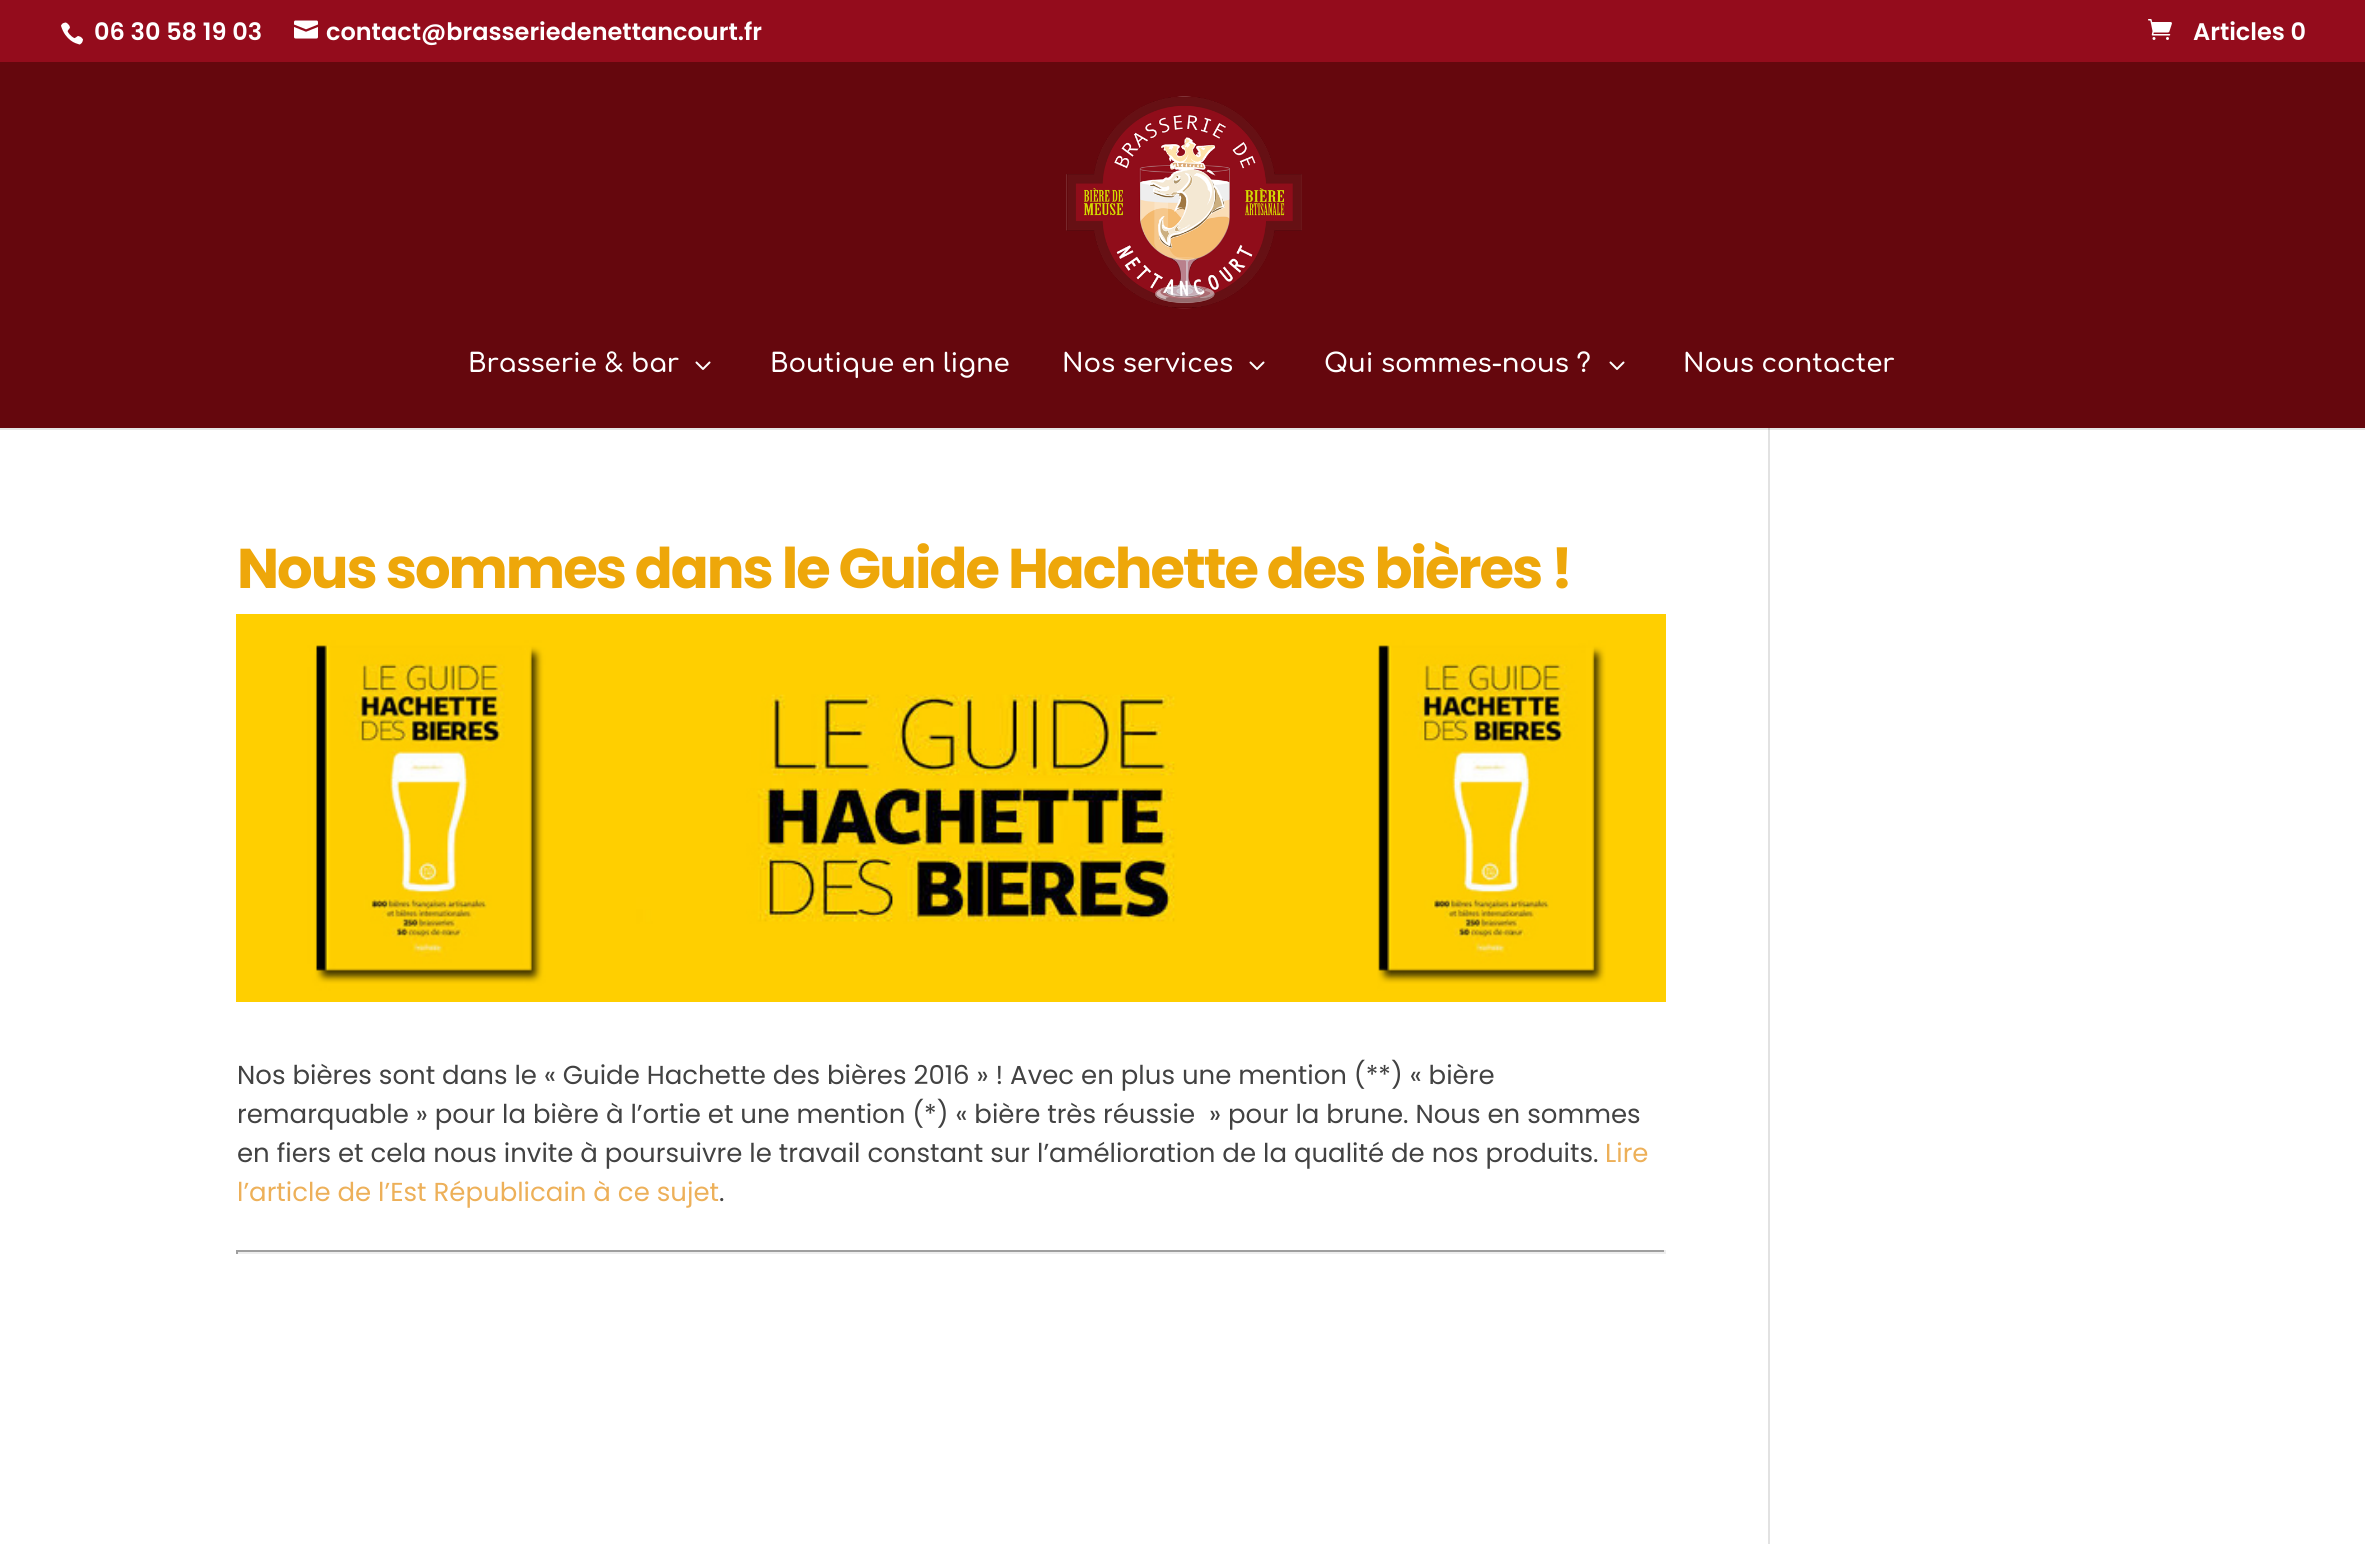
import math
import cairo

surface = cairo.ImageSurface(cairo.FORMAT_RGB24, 2365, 1544)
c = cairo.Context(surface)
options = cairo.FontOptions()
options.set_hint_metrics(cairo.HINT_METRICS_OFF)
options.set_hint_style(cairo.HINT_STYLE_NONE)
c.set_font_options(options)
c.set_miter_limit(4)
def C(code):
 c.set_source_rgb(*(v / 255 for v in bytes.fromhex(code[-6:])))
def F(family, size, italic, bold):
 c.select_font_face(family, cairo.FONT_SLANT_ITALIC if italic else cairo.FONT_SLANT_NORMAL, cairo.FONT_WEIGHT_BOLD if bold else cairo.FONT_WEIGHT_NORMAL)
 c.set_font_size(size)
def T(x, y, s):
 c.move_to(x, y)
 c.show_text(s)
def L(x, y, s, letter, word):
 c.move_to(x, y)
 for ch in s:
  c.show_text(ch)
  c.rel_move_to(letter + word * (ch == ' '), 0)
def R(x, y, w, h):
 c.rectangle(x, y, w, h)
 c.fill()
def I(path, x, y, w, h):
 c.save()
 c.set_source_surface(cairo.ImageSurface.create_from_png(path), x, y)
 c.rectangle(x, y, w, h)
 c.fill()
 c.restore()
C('940c1c')
c.paint()
I('1.png',61,22,22,23)
F('Poppins SemiBold',24,0,0)
C('ffffff')
T(94,40,'06 30 58 19 03')
I('2.png',294,20,24,19)
T(326,40,'contact@brasseriedenettancourt.fr')
I('3.png',2148,19,24,21)
T(2193,40,'Articles 0')
C('65070d')
R(0,62,2365,366)
I('4.png',1066,96,236,213)
F('Comfortaa SemiBold',26,0,0)
C('ffffff')
T(468,372,'Brasserie & bar')
I('5.png',695,361,16,9)
T(770,372,'Boutique en ligne')
T(1062,372,'Nos services')
I('5.png',1249,361,16,9)
T(1324,372,'Qui sommes-nous ?')
I('5.png',1609,361,16,9)
T(1683,372,'Nous contacter')
R(0,430,2365,1114)
C('e6e6e6')
R(0,428,2365,2)
F('Poppins',56,0,1)
C('eea70a')
L(237,588,'Nous sommes dans le Guide Hachette des bières !',-2,0)
I('6.png',236,614,1430,388)
F('Poppins',26,0,0)
C('424242')
T(237,1084,'Nos bières sont dans le « Guide Hachette des bières 2016 » ! Avec en plus une mention (**) « bière')
T(237,1123,'remarquable » pour la bière à l’ortie et une mention (*) « bière très réussie  » pour la brune. Nous en sommes')
T(237,1162,'en fiers et cela nous invite à poursuivre le travail constant sur l’amélioration de la qualité de nos produits.')
C('edb059')
T(1605,1162,'Lire')
T(237,1201,'l’article de l’Est Républicain à ce sujet')
C('424242')
T(719,1201,'.')
C('9f9f9f')
R(236,1250,1430,2)
C('eeeeee')
R(1664,1250,2,4)
R(236,1252,1430,2)
C('9f9f9f')
R(236,1250,2,4)
C('e2e2e2')
R(1768,428,2,1116)
C('cbcbcb')
R(1768,428,2,2)
surface.write_to_png('o.png')
